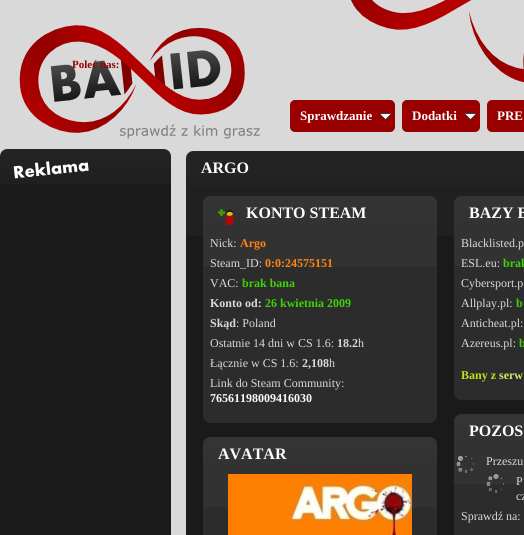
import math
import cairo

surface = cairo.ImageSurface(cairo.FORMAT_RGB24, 524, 535)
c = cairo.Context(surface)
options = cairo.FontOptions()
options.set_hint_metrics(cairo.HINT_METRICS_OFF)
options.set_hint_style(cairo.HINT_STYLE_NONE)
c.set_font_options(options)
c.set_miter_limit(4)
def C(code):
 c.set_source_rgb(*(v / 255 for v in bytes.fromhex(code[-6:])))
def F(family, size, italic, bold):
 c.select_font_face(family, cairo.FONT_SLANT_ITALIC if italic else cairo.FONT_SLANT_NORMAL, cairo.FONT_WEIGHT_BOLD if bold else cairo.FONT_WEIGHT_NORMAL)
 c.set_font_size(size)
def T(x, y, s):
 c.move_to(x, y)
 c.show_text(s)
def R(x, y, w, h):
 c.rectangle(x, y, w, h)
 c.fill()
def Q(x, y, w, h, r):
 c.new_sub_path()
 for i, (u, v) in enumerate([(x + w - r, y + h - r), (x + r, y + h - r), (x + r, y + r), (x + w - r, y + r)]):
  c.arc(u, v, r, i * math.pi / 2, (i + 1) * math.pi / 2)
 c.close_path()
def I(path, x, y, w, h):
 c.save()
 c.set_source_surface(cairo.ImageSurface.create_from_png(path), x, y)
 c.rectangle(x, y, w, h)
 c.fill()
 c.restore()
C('d9d9d9')
c.paint()
I('1.png',19,0,505,139)
F('Liberation Serif',11,0,1)
C('990000')
T(72,68,'Poleć nas:')
Q(290,100,105,32,5)
c.fill()
F('Liberation Serif',13,0,1)
C('fcfcfc')
T(300,120,'Sprawdzanie')
I('2.png',380,113,11,7)
C('990000')
Q(402,100,78,32,5)
c.fill()
C('fcfcfc')
T(412,120,'Dodatki')
I('2.png',465,113,11,7)
C('990000')
Q(487,100,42,32,5)
c.fill()
C('fcfcfc')
T(497,120,'PRE')
I('3.png',0,149,171,35)
C('1a1a1a')
R(0,184,171,351)
I('4.png',186,151,338,35)
F('Liberation Serif',16,0,1)
C('fcfcfc')
T(201,173,'ARGO')
C('1a1a1a')
R(186,236,338,299)
C('202020')
R(186,186,338,50)
I('5.png',203,196,234,35)
I('6.png',218,209,16,16)
C('fcfcfc')
T(246,218,'KONTO STEAM')
C('2c2c2c')
R(203,266,234,140)
C('323232')
R(203,231,234,35)
F('Liberation Serif',12,0,0)
C('dadada')
T(210,247,'Nick:')
F('Liberation Serif',12,0,1)
C('ff850d')
T(240,247,'Argo')
F('Liberation Serif',12,0,0)
C('dadada')
T(210,267,'Steam_ID:')
F('Liberation Serif',12,0,1)
C('ff850d')
T(265,267,'0:0:24575151')
F('Liberation Serif',12,0,0)
C('dadada')
T(210,287,'VAC:')
F('Liberation Serif',12,0,1)
C('40d207')
T(242,287,'brak bana')
C('dadada')
T(210,307,'Konto od:')
C('40d207')
T(265,307,'26 kwietnia 2009')
C('dadada')
T(210,327,'Skąd')
F('Liberation Serif',12,0,0)
T(236,327,': Poland')
T(210,347,'Ostatnie 14 dni w CS 1.6:')
F('Liberation Serif',12,0,1)
T(337,347,'18.2')
F('Liberation Serif',12,0,0)
T(358,347,'h')
T(210,367,'Łącznie w CS 1.6:')
F('Liberation Serif',12,0,1)
T(302,367,'2,108')
F('Liberation Serif',12,0,0)
T(329,367,'h')
T(210,387,'Link do Steam Community:')
F('Liberation Serif',12,0,1)
C('fcfcfc')
T(210,402,'76561198009416030')
I('7.png',203,406,234,17)
I('8.png',203,437,234,35)
F('Liberation Serif',16,0,1)
T(218,459,'AVATAR')
C('2c2c2c')
R(203,507,234,28)
C('323232')
R(203,472,234,35)
I('9.png',228,474,184,61)
I('10.png',454,196,70,35)
C('fcfcfc')
T(469,218,'BAZY B')
C('2c2c2c')
R(454,266,70,117)
C('323232')
R(454,231,70,35)
F('Liberation Serif',12,0,0)
C('dadada')
T(461,247,'Blacklisted.p')
T(461,267,'ESL.eu:')
F('Liberation Serif',12,0,1)
C('40d207')
T(503,267,'brak')
F('Liberation Serif',12,0,0)
C('dadada')
T(461,287,'Cybersport.p')
T(461,307,'Allplay.pl:')
F('Liberation Serif',12,0,1)
C('40d207')
T(516,307,'b')
F('Liberation Serif',12,0,0)
C('dadada')
T(461,327,'Anticheat.pl:')
T(461,347,'Azereus.pl:')
F('Liberation Serif',12,0,1)
C('40d207')
T(519,347,'b')
C('c4e11b')
T(461,379,'Bany z')
C('d6ea63')
T(499,379,'serw')
I('11.png',454,383,70,17)
I('12.png',454,414,70,35)
F('Liberation Serif',16,0,1)
C('fcfcfc')
T(469,436,'POZOS')
C('2c2c2c')
R(454,484,70,51)
C('323232')
R(454,449,70,35)
I('13.png',456,456,18,17)
F('Liberation Serif',12,0,0)
C('dadada')
T(486,465,'Przeszu')
I('14.png',486,474,18,19)
T(516,485,'P')
T(516,500,'cz')
T(461,520,'Sprawdź na:')
surface.write_to_png('o.png')
